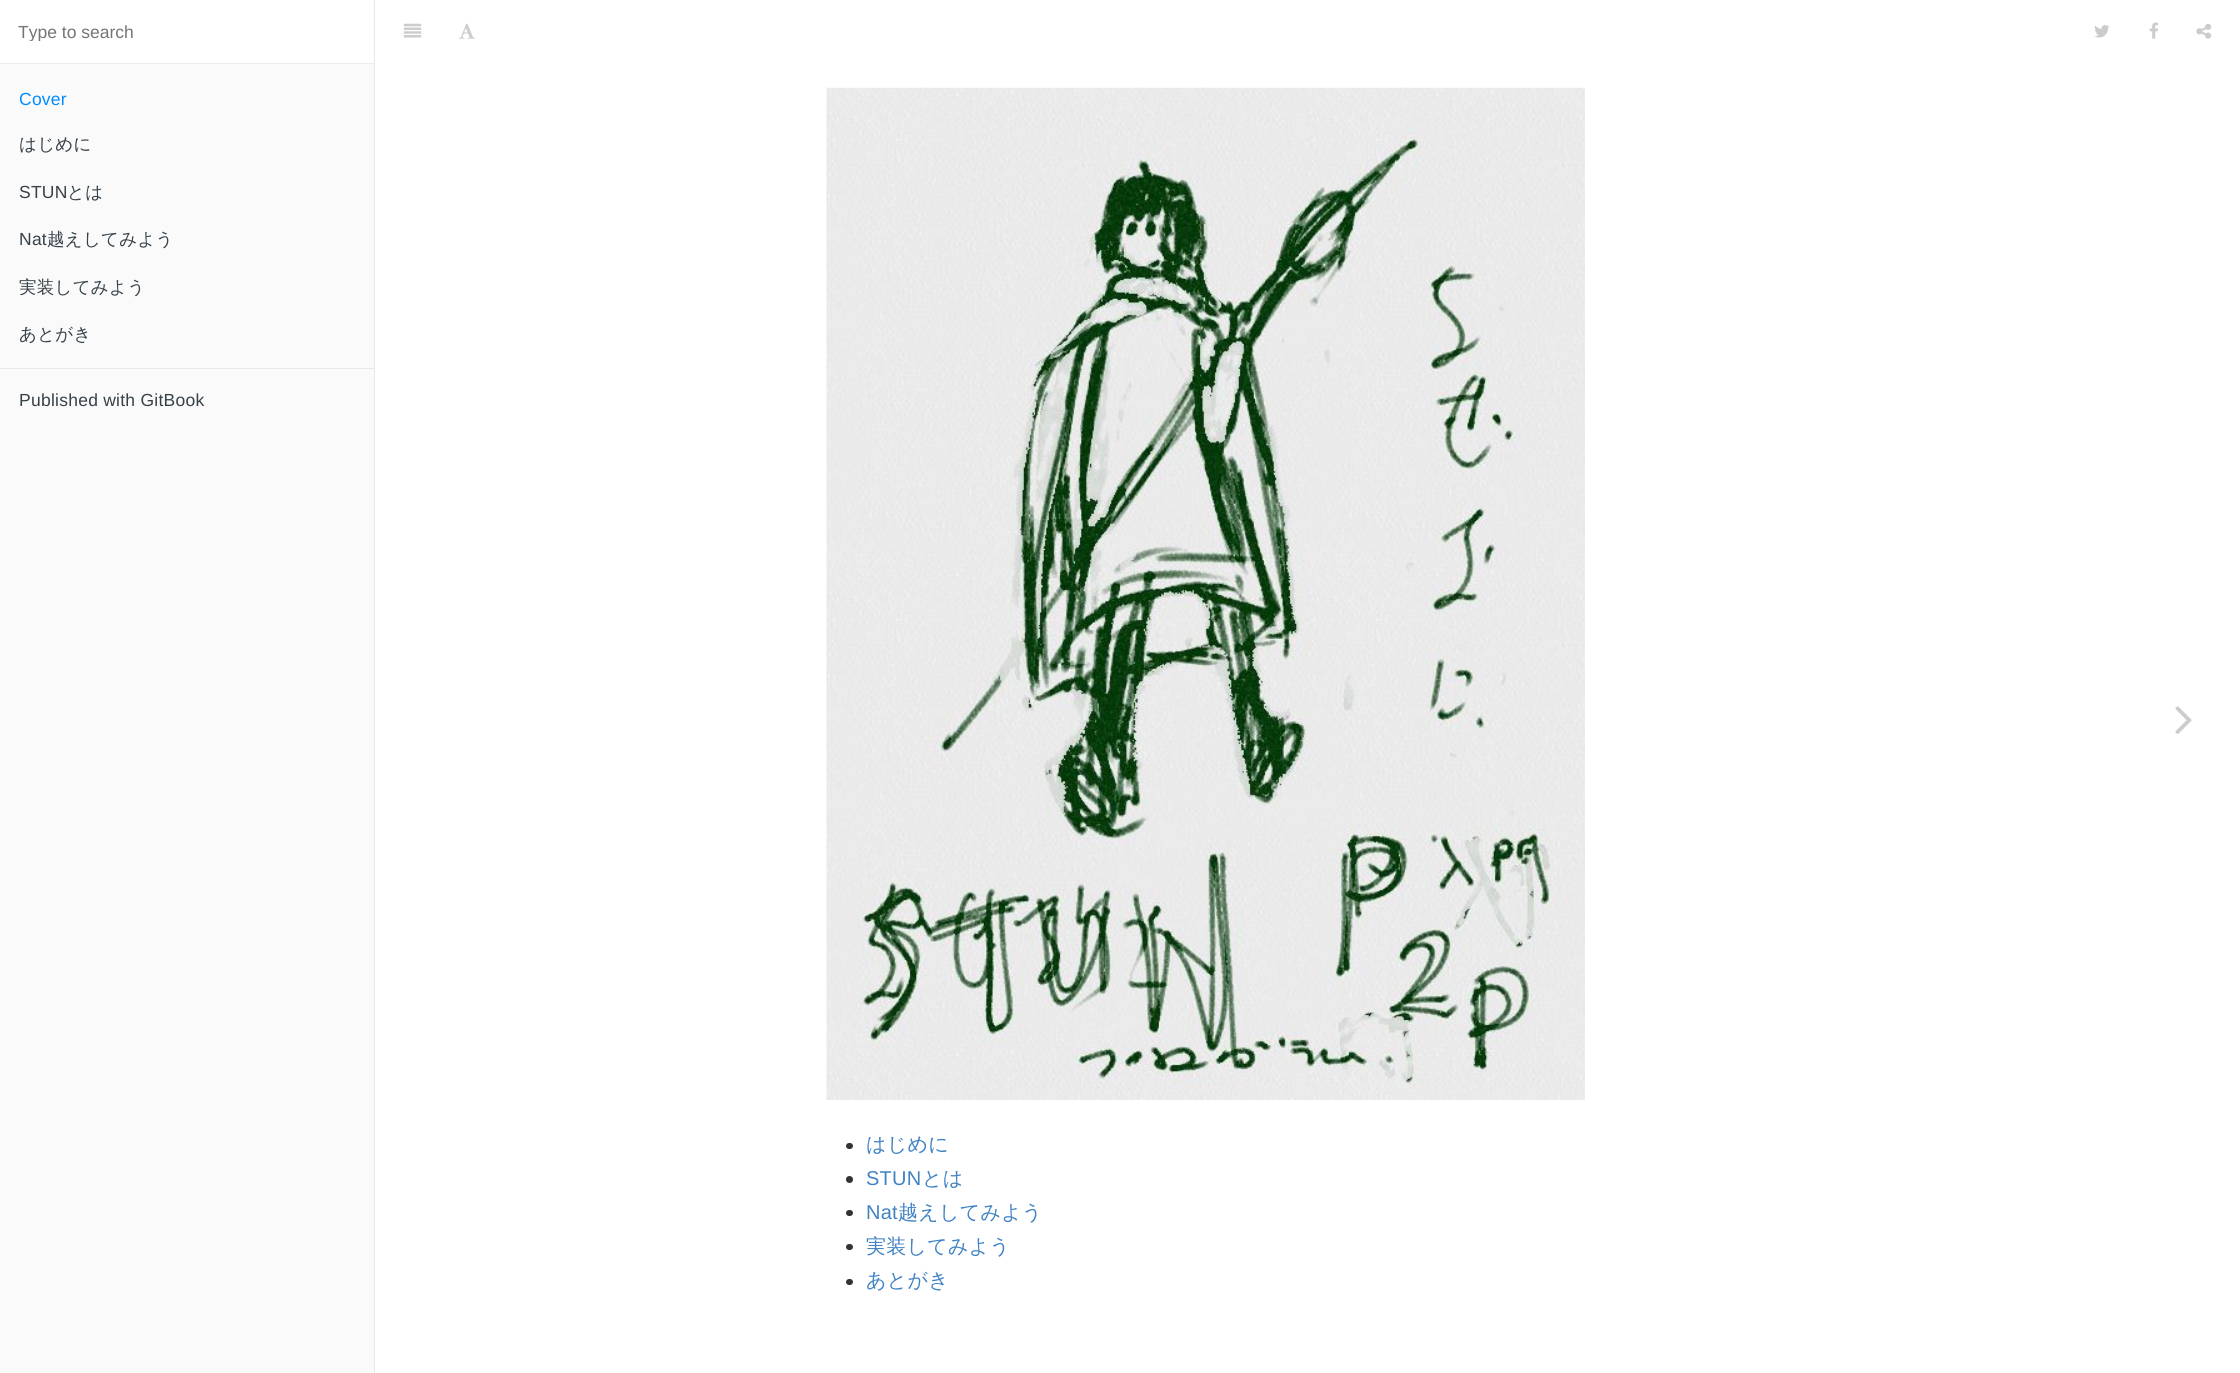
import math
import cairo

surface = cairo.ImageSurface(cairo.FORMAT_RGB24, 2240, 1373)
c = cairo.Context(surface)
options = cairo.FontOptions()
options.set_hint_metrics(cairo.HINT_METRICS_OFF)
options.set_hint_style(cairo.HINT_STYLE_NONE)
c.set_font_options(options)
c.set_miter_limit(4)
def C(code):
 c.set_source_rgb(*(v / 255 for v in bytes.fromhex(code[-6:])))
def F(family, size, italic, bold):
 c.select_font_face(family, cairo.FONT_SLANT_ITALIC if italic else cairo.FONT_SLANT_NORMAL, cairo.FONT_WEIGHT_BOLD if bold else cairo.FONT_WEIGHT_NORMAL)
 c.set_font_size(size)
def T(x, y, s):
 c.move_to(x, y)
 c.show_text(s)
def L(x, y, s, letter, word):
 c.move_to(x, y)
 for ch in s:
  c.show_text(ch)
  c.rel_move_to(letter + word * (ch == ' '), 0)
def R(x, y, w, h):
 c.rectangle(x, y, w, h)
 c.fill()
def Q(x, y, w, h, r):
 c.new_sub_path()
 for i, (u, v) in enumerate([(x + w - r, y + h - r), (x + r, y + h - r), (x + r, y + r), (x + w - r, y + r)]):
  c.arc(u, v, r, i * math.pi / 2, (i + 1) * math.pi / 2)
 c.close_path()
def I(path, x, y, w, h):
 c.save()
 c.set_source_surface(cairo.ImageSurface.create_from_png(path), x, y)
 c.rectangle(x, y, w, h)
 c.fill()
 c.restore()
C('ffffff')
c.paint()
C('fafafa')
R(0,64,374,1309)
C('e9e9e9')
R(374,0,1,1373)
C('ededed')
R(0,63,374,1)
c.save()
c.rectangle(18,21,338,20)
c.clip()
F('Liberation Sans',17.5,0,0)
C('757575')
T(18,38,'Type to search')
c.restore()
F('Liberation Sans',17.5,0,0)
C('008cff')
L(19,105,'Cover',.25,0)
F('WenQuanYi Zen Hei Medium',17.5,0,0)
C('364149')
L(19,150,'はじめに',.25,0)
F('Liberation Sans',17.5,0,0)
L(19,198,'STUN',.25,0)
F('WenQuanYi Zen Hei Medium',17.5,0,0)
L(67,198,'とは',.25,0)
F('Liberation Sans',17.5,0,0)
L(19,245,'Nat',.25,0)
F('WenQuanYi Zen Hei Medium',17.5,0,0)
L(47,245,'越えしてみよう',.25,0)
L(19,293,'実装してみよう',.25,0)
L(19,340,'あとがき',.25,0)
C('e9e9e9')
R(0,368,374,1)
F('Liberation Sans',17.5,0,0)
C('364149')
L(19,406,'Published with GitBook',.25,0)
I('1.png',2175,706,17,28)
I('2.png',403,23,19,15)
I('3.png',458,23,17,16)
I('4.png',2094,25,16,13)
I('5.png',2149,22,10,17)
I('6.png',2196,23,16,16)
I('7.png',826,87,759,1013)
C('333333')
Q(846,1143,7,6,3)
c.fill()
F('WenQuanYi Zen Hei Medium',20,0,0)
C('4183c4')
L(866,1151,'はじめに',.25,0)
C('333333')
c.new_path()
c.arc(849.5,1179.5,3.5,0,2 * math.pi)
c.fill()
F('Liberation Sans',20,0,0)
C('4183c4')
L(866,1185,'STUN',.25,0)
F('WenQuanYi Zen Hei Medium',20,0,0)
L(922,1185,'とは',.25,0)
C('333333')
Q(846,1210,7,6,3)
c.fill()
F('Liberation Sans',20,0,0)
C('4183c4')
L(866,1219,'Nat',.25,0)
F('WenQuanYi Zen Hei Medium',20,0,0)
L(898,1219,'越えしてみよう',.25,0)
C('333333')
Q(846,1244,7,6,3)
c.fill()
C('4183c4')
L(866,1253,'実装してみよう',.25,0)
C('333333')
Q(846,1279,7,6,3)
c.fill()
C('4183c4')
L(866,1287,'あとがき',.25,0)
surface.write_to_png('o.png')
